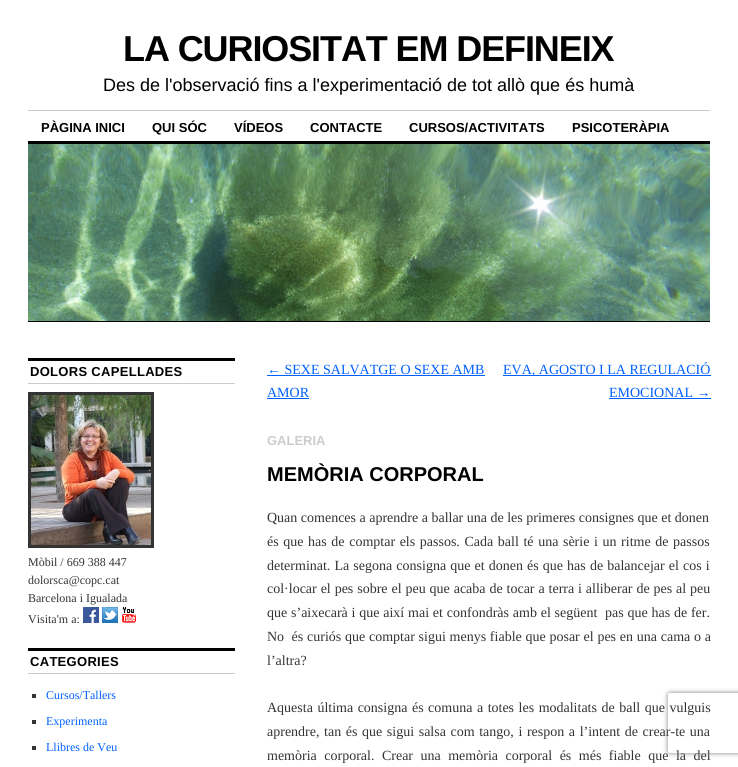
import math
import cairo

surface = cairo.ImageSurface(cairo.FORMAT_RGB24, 738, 767)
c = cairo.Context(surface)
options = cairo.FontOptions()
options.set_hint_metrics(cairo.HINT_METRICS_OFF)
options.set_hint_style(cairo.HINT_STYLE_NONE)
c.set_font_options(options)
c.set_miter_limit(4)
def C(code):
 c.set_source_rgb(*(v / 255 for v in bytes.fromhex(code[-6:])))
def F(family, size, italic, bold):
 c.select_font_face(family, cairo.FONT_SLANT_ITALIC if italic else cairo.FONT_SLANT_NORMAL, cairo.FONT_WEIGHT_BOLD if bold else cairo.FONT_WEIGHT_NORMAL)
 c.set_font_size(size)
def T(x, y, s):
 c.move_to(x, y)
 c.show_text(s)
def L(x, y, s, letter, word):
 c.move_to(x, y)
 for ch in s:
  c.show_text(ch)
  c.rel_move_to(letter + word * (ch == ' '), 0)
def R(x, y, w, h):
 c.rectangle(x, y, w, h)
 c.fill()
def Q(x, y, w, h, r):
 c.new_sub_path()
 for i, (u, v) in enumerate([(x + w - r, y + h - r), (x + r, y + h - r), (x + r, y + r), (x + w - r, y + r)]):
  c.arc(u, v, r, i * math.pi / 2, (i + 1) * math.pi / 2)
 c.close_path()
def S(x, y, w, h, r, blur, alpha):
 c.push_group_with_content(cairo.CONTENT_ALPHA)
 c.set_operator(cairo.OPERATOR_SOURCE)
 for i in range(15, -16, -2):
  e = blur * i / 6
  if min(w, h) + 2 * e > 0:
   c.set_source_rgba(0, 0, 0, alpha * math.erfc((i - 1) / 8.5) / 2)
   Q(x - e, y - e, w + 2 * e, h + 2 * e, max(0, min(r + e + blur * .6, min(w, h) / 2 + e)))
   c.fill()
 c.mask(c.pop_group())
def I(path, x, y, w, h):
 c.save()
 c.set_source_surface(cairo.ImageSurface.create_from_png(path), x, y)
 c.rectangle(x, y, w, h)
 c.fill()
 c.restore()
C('ffffff')
c.paint()
F('Liberation Sans',36,0,1)
C('000000')
L(123,61,'LA CURIOSITAT EM DEFINEIX',-1.1,0)
F('Liberation Sans',18,0,0)
T(103,91,'Des de l\'observació fins a l\'experimentació de tot allò que és humà')
C('cccccc')
R(28,110,682,1)
F('Liberation Sans',13,0,1)
C('000000')
T(41,132,'PÀGINA INICI')
T(152,132,'QUI SÓC')
T(234,132,'VÍDEOS')
T(310,132,'CONTACTE')
T(409,132,'CURSOS/ACTIVITATS')
T(572,132,'PSICOTERÀPIA')
R(28,141,682,3)
I('1.png',28,144,682,177)
R(28,321,682,1)
R(28,358,207,3)
C('cccccc')
R(28,383,207,1)
C('000000')
L(30,376,'DOLORS CAPELLADES',.3,0)
c.rectangle(29.5,393.5,123,153)
C('333333')
c.set_line_width(3)
c.stroke()
I('2.png',31,395,120,150)
F('Liberation Serif',12,0,0)
T(28,566,'Mòbil / 669 388 447')
T(28,584,'dolorsca@copc.cat')
T(28,602,'Barcelona i Igualada')
T(28,623,'Visita\'m a:')
I('3.png',83,607,16,16)
I('4.png',102,607,16,16)
I('5.png',122,607,14,16)
C('000000')
R(28,648,207,3)
C('cccccc')
R(28,673,207,1)
F('Liberation Sans',13,0,1)
C('000000')
L(30,666,'CATEGORIES',.3,0)
C('333333')
R(32,694,4,4)
F('Liberation Serif',12,0,0)
C('0060ff')
T(46,699,'Cursos/Tallers')
C('333333')
R(32,720,4,4)
C('0060ff')
T(46,725,'Experimenta')
C('333333')
R(32,746,4,4)
C('0060ff')
T(46,751,'Llibres de Veu')
F('Liberation Serif',14,0,0)
T(267,374,'← SEXE SALVATGE O SEXE AMB')
R(267,375,218,1)
T(267,397,'AMOR')
R(267,398,42,1)
R(503,375,208,1)
T(503,374,'EVA, AGOSTO I LA REGULACIÓ')
T(609,397,'EMOCIONAL →')
R(609,398,102,1)
F('Liberation Sans',13,0,1)
C('cccccc')
T(267,445,'GALERIA')
F('Liberation Sans',20,0,1)
C('000000')
T(267,481,'MEMÒRIA CORPORAL')
F('Liberation Serif',14,0,0)
C('333333')
T(267,522,'Quan comences a aprendre a ballar una de les primeres consignes que et donen')
L(267,546,'és que has de comptar els passos. Cada ball té una sèrie i un ritme de passos',0,1.1)
L(267,570,'determinat. La segona consigna que et donen és que has de balancejar el cos i',0,.6)
L(267,593,'col·locar el pes sobre el peu que acaba de tocar a terra i alliberar de pes al peu',0,.4)
L(267,617,'que s’aixecarà i que així mai et confondràs amb el següent  pas que has de fer.',0,.3)
L(267,641,'No  és curiós que comptar sigui menys fiable que posar el pes en una cama o a',0,.25)
T(267,665,'l’altra?')
L(267,712,'Aquesta última consigna és comuna a totes les modalitats de ball que vulguis',0,1)
L(267,736,'aprendre, tan és que sigui salsa com tango, i respon a l’intent de crear-te una',0,1.1)
L(267,760,'memòria corporal. Crear una memòria corporal és més fiable que la del',0,4)
c.save()
c.set_fill_rule(cairo.FILL_RULE_EVEN_ODD)
c.new_path()
c.move_to(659,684)
c.line_to(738,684)
c.line_to(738,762)
c.line_to(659,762)
c.close_path()
c.move_to(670,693)
c.line_to(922,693)
c.curve_to(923,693,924,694,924,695)
c.line_to(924,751)
c.curve_to(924,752,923,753,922,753)
c.line_to(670,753)
c.curve_to(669,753,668,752,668,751)
c.line_to(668,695)
c.curve_to(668,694,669,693,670,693)
c.close_path()
c.clip()
C('808080')
S(668,693,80,60,2,2.5,1)
c.restore()
surface.write_to_png('o.png')
